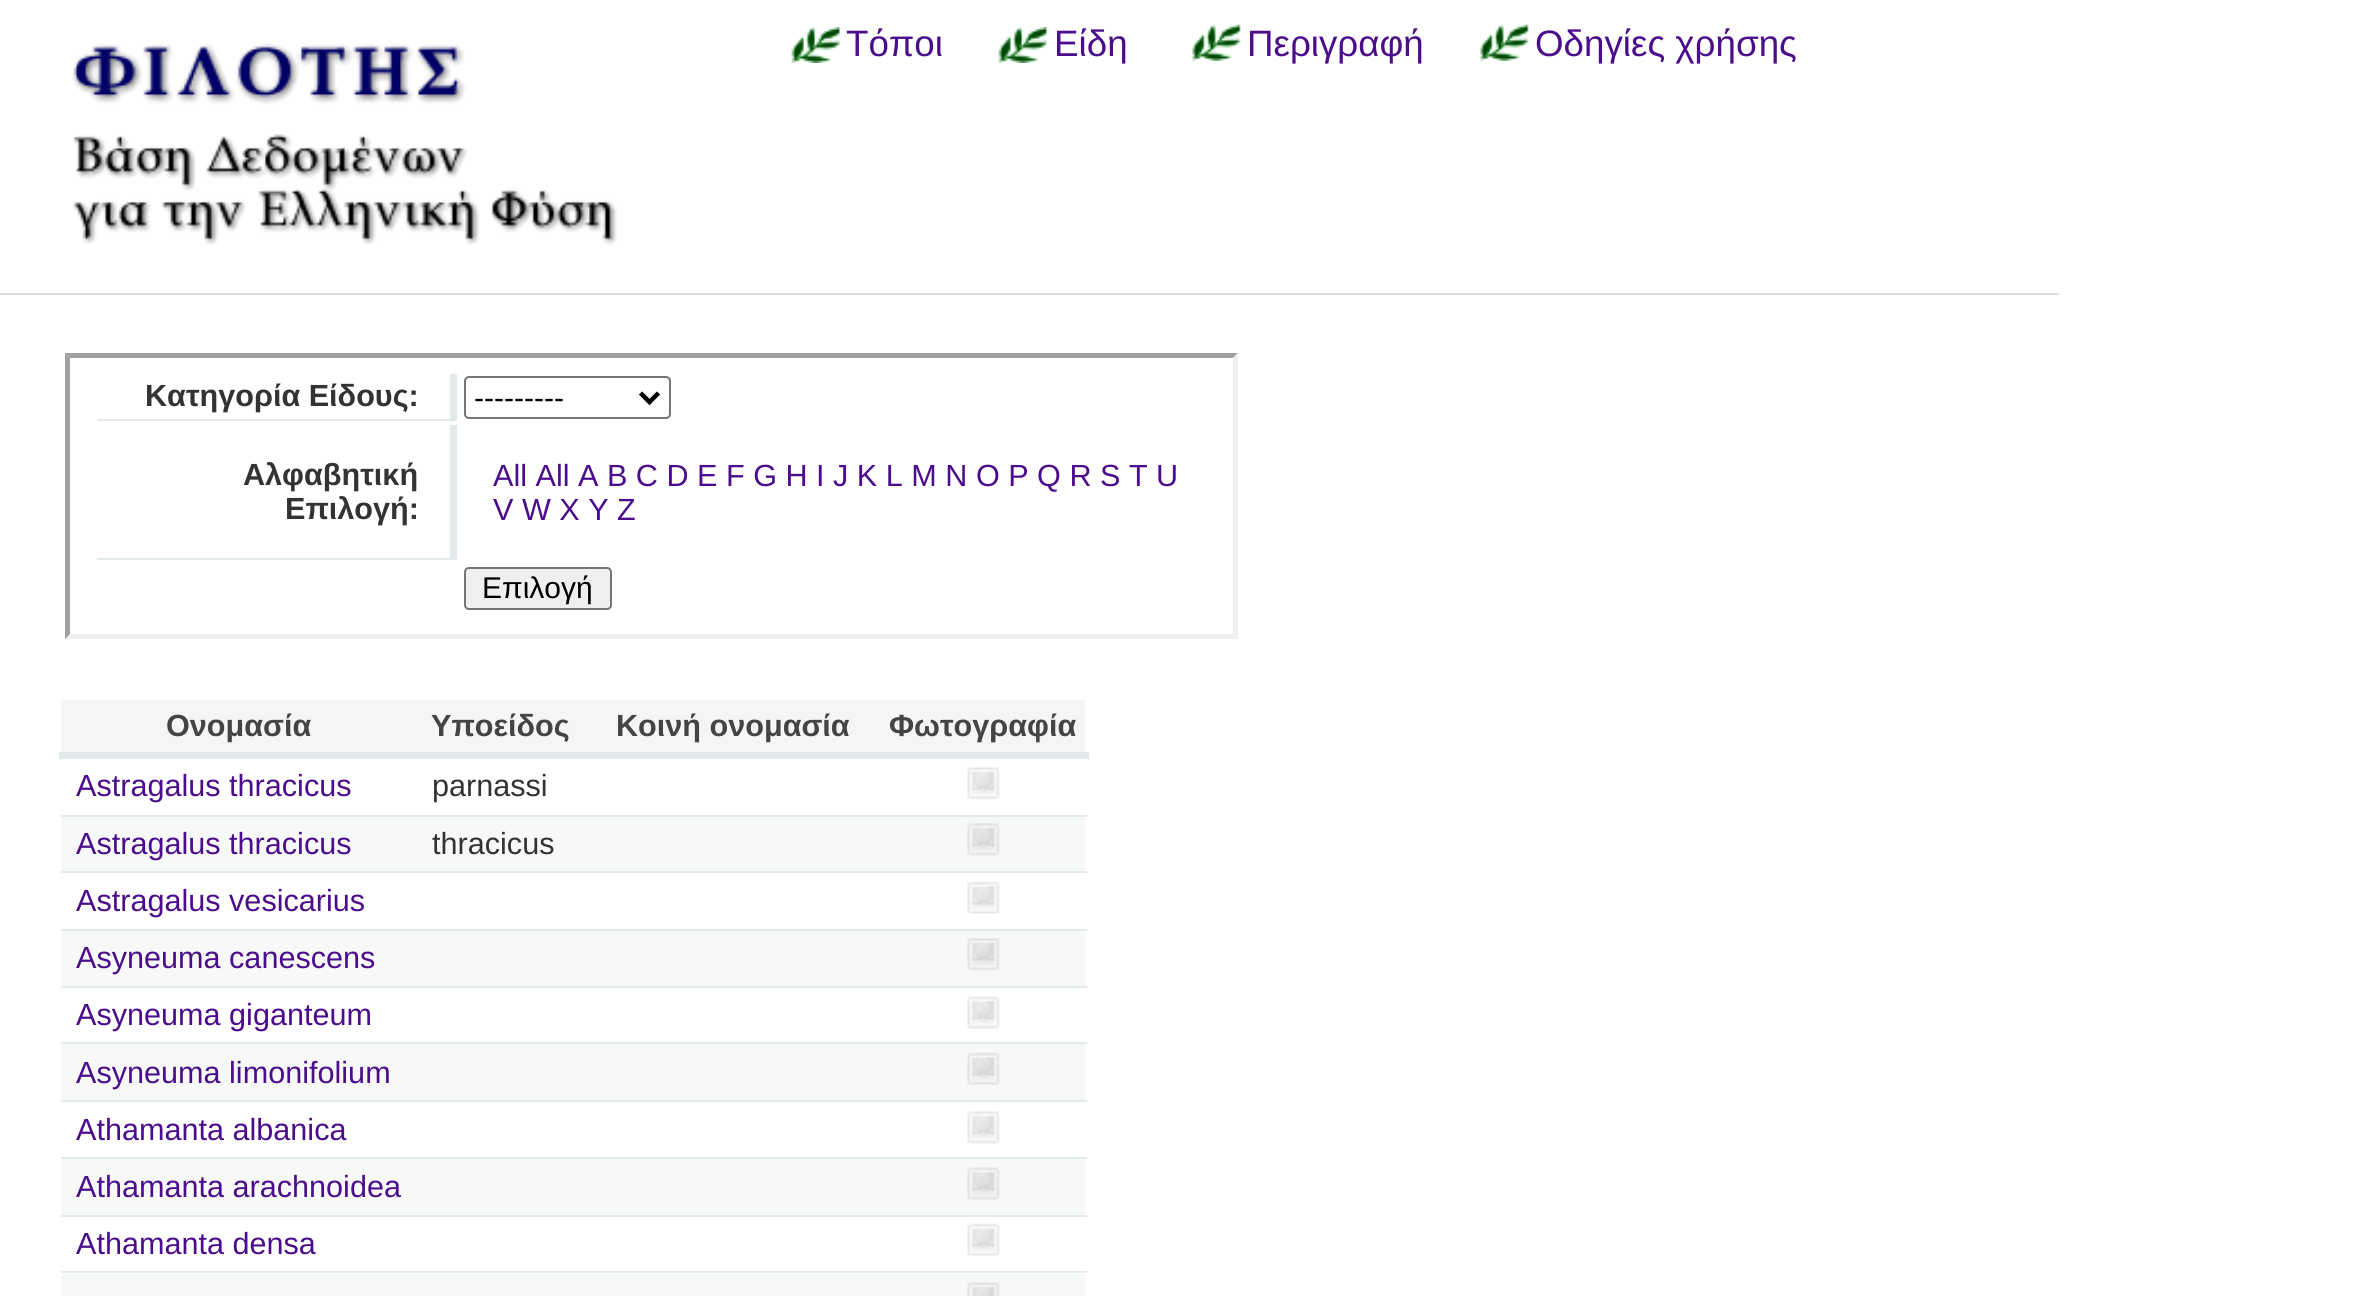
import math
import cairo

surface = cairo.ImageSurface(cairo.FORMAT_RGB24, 2379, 1296)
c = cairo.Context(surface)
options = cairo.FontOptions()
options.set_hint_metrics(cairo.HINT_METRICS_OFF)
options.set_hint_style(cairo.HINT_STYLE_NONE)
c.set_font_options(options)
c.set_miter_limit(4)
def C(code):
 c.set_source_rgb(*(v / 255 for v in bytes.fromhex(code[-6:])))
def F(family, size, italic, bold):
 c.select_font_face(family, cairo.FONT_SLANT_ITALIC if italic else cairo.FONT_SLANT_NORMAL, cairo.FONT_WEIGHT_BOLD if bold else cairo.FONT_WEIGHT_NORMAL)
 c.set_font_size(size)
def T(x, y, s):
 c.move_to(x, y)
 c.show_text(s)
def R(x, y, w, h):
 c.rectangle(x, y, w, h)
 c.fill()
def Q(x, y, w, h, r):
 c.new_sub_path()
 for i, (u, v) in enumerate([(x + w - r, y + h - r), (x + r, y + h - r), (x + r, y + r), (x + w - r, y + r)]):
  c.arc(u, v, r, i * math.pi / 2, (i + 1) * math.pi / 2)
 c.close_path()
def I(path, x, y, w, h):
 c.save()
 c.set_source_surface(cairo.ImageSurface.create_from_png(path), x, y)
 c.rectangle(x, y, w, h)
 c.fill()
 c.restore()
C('ffffff')
c.paint()
C('dddddd')
R(0,293,2059,2)
I('1.png',72,43,545,202)
I('2.png',791,27,49,36)
F('Liberation Sans',36.75,0,0)
C('4c0d8c')
T(846,56,'Τόποι')
I('3.png',998,27,49,36)
T(1054,56,'Είδη')
I('4.png',1192,24,49,37)
T(1247,56,'Περιγραφή')
I('4.png',1480,24,49,37)
T(1535,56,'Οδηγίες χρήσης')
C('9f9f9f')
c.new_path()
c.move_to(65,353)
c.line_to(1238,353)
c.line_to(1233,358)
c.line_to(70,358)
c.close_path()
c.fill()
C('efefef')
c.new_path()
c.move_to(1238,353)
c.line_to(1238,639)
c.line_to(1233,634)
c.line_to(1233,358)
c.close_path()
c.fill()
c.new_path()
c.move_to(1238,639)
c.line_to(65,639)
c.line_to(70,634)
c.line_to(1233,634)
c.close_path()
c.fill()
C('9f9f9f')
c.new_path()
c.move_to(65,639)
c.line_to(65,353)
c.line_to(70,358)
c.line_to(70,634)
c.close_path()
c.fill()
C('e3eaee')
R(450,374,7,47)
R(97,419,360,2)
F('Liberation Sans',30.6,0,1)
C('333333')
T(145,406,'Κατηγορία Είδους:')
Q(465,377,205,41,4)
C('767676')
c.stroke()
c.new_path()
c.move_to(640.5,393)
c.line_to(649.5,402)
c.line_to(658.5,393)
C('000000')
c.set_line_width(4.5)
c.stroke()
F('Liberation Sans',30,0,0)
T(474,408,'---------')
C('e3eaee')
R(450,425,7,135)
R(97,558,360,2)
F('Liberation Sans',30.6,0,1)
C('333333')
T(243,485,'Αλφαβητική')
T(285,519,'Επιλογή:')
F('Liberation Sans',30.6,0,0)
C('4c0d8c')
T(493,486,'All All A B C D E F G H I J K L M N O P Q R S T U')
T(493,520,'V W X Y Z')
C('efefef')
Q(465,568,146,41,4)
c.fill_preserve()
C('767676')
c.set_line_width(2)
c.stroke()
F('Liberation Sans',30,0,0)
C('000000')
T(482,598,'Επιλογή')
C('f5f5f5')
R(61,700,1024,52)
F('Liberation Sans',30.6,0,1)
C('444444')
T(166,736,'Ονομασία')
T(431,736,'Υποείδος')
T(616,736,'Κοινή ονομασία')
C('e3eaee')
R(59,752,1030,7)
C('444444')
T(889,736,'Φωτογραφία')
C('e3eaee')
R(61,815,1026,2)
I('5.png',967,767,33,33)
F('Liberation Sans',30.6,0,0)
C('4c0d8c')
T(76,796,'Astragalus thracicus')
C('333333')
T(432,796,'parnassi')
C('e3eaee')
R(61,871,1026,2)
C('f7f8f8')
R(61,817,1024,54)
I('6.png',967,823,33,33)
C('4c0d8c')
T(76,854,'Astragalus thracicus')
C('333333')
T(432,854,'thracicus')
C('e3eaee')
R(61,929,1026,2)
I('7.png',967,881,33,33)
C('4c0d8c')
T(76,911,'Astragalus vesicarius')
C('e3eaee')
R(61,986,1026,2)
C('f7f8f8')
R(61,931,1024,55)
I('8.png',967,938,33,33)
C('4c0d8c')
T(76,968,'Asyneuma canescens')
C('e3eaee')
R(61,1042,1026,2)
I('9.png',967,996,33,33)
C('4c0d8c')
T(76,1025,'Asyneuma giganteum')
C('e3eaee')
R(61,1100,1026,2)
C('f7f8f8')
R(61,1044,1024,56)
I('10.png',967,1052,33,33)
C('4c0d8c')
T(76,1083,'Asyneuma limonifolium')
C('e3eaee')
R(61,1157,1026,2)
I('11.png',967,1111,33,33)
C('4c0d8c')
T(76,1140,'Athamanta albanica')
C('e3eaee')
R(61,1215,1026,2)
C('f7f8f8')
R(61,1159,1024,56)
I('12.png',967,1167,33,33)
C('4c0d8c')
T(76,1197,'Athamanta arachnoidea')
C('e3eaee')
R(61,1271,1026,2)
I('7.png',967,1223,33,33)
C('4c0d8c')
T(76,1254,'Athamanta densa')
C('f7f8f8')
R(61,1274,1024,22)
I('13.png',967,1282,33,14)
surface.write_to_png('o.png')
